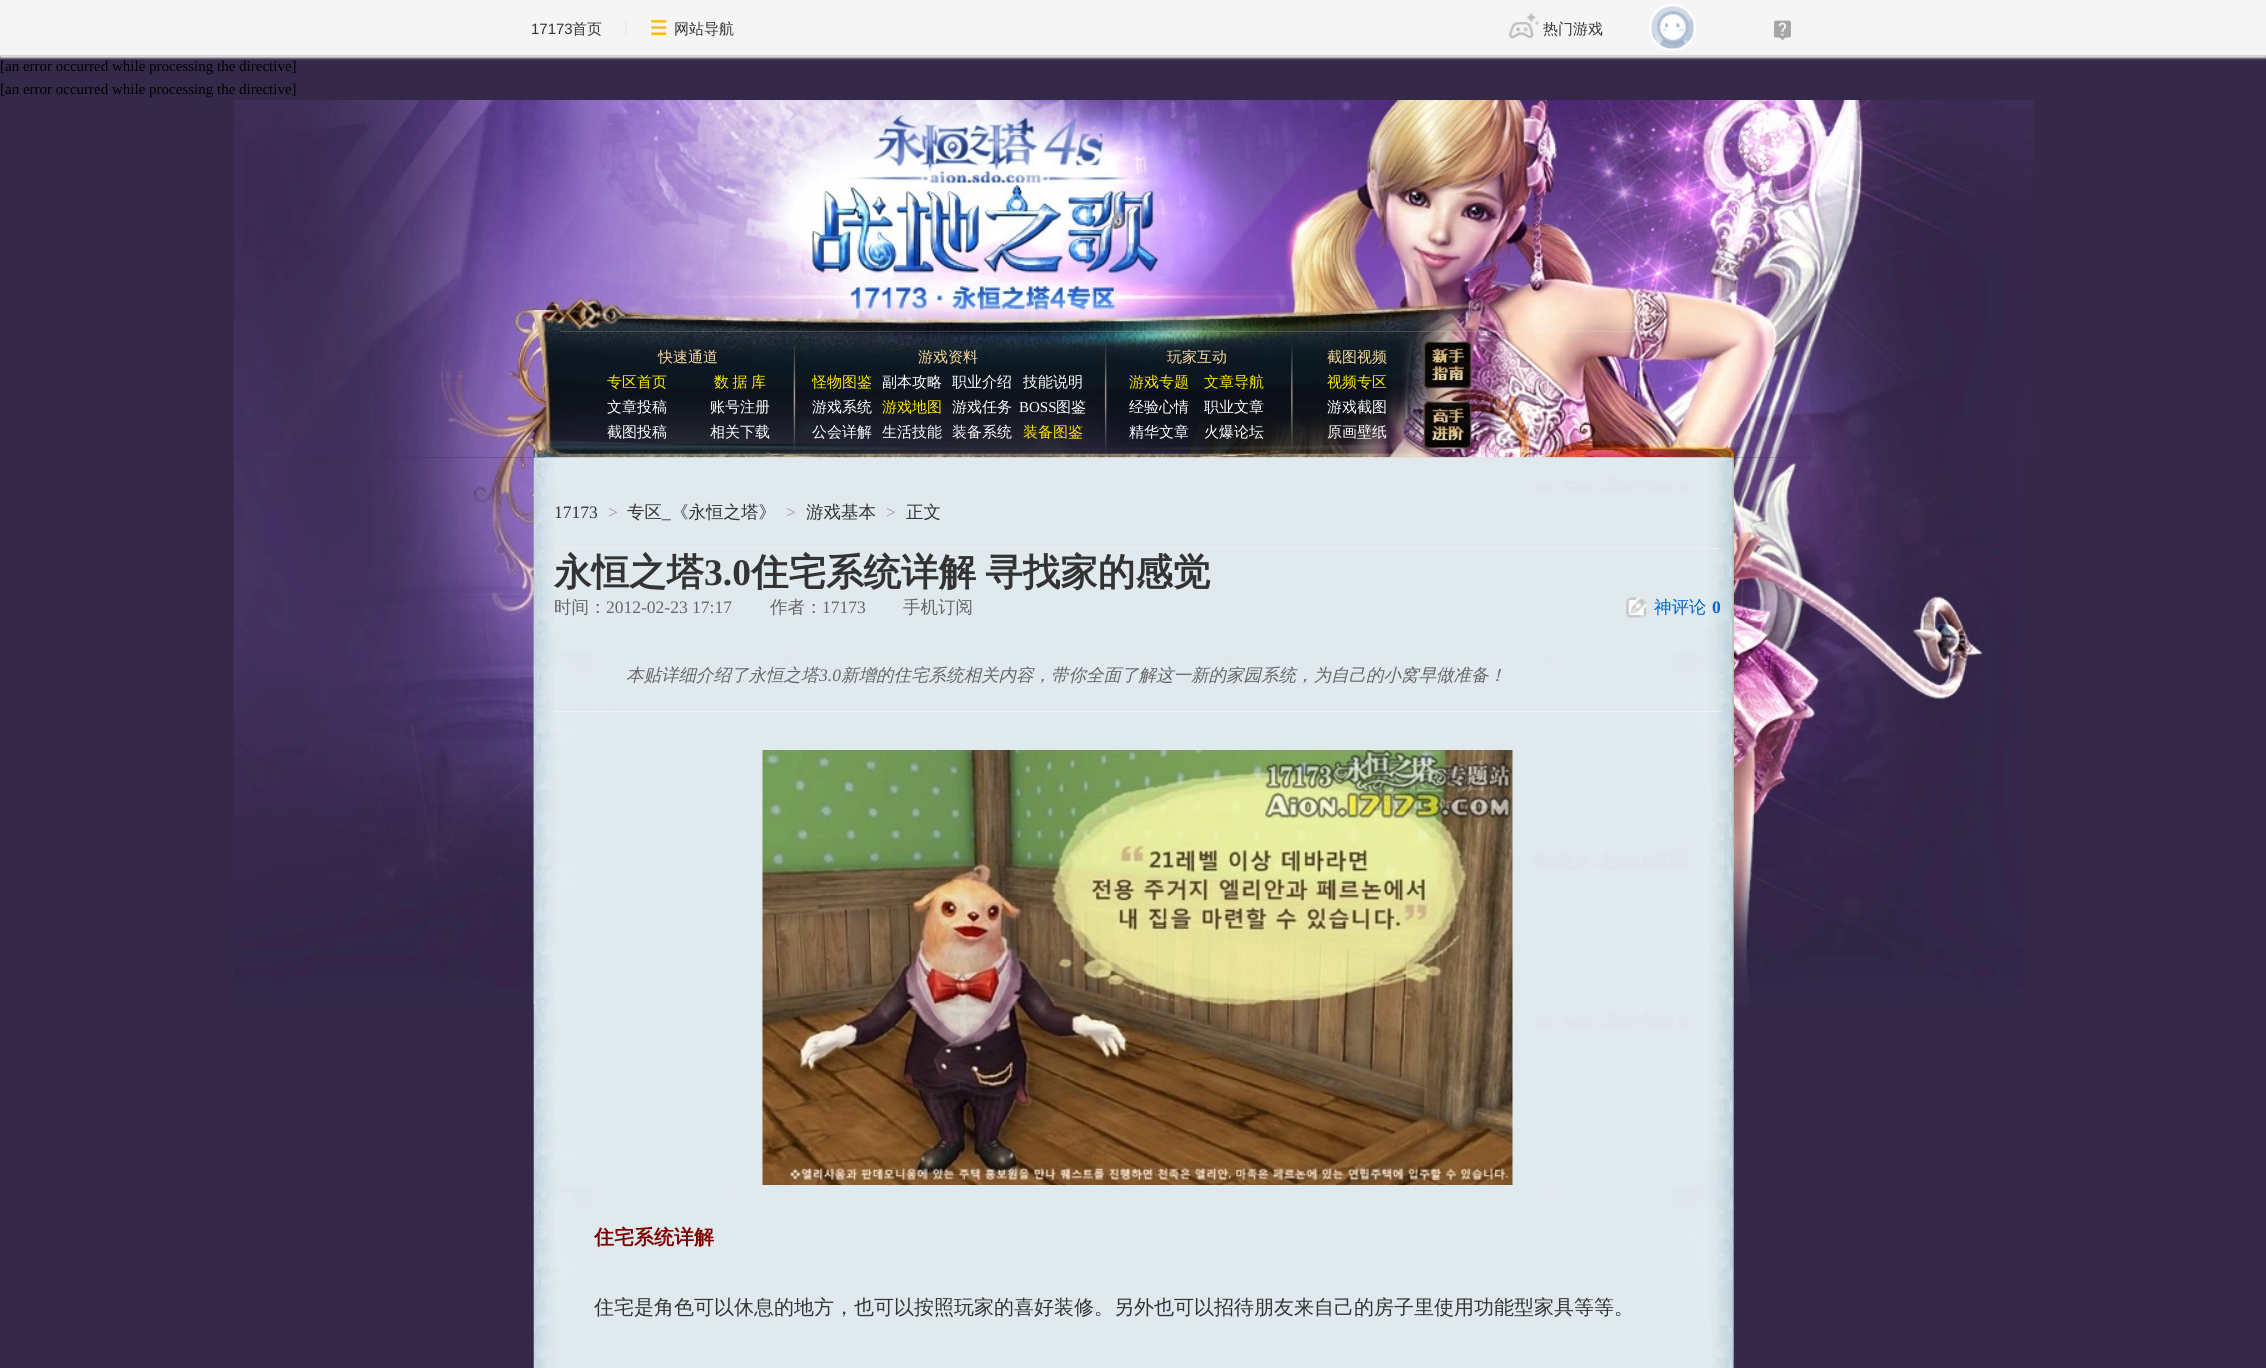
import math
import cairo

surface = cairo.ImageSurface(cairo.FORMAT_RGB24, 2266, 1368)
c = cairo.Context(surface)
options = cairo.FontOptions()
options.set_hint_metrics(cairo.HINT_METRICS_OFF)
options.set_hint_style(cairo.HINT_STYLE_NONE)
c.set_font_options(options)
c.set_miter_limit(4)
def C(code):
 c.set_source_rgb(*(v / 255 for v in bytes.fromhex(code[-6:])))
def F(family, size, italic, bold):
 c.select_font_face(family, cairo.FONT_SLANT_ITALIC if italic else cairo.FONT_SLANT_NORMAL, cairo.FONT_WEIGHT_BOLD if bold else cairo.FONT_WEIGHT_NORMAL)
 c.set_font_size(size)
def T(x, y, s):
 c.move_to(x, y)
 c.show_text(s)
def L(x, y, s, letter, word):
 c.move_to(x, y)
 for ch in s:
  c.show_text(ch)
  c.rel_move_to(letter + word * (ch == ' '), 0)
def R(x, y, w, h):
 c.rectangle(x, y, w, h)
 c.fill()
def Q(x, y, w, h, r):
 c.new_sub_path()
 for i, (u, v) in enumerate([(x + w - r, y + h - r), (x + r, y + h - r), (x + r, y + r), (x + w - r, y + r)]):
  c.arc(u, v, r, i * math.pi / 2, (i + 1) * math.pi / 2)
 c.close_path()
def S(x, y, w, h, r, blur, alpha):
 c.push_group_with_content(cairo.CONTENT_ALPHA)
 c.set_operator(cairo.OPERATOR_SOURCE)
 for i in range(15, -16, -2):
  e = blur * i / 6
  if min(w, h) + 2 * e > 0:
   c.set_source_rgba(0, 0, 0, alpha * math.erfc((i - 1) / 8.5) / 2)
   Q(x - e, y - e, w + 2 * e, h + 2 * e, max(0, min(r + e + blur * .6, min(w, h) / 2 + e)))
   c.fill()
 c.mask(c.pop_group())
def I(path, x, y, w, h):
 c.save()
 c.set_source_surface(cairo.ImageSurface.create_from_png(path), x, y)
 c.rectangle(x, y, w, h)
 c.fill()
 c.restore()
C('35294a')
c.paint()
C('e8e6e6')
S(0,1,2266,57,0,1,1)
C('f5f5f5')
R(0,0,2266,55)
C('d2d2d2')
R(0,55,2266,1)
F('Liberation Sans',15,0,0)
C('333333')
T(531,34,'17173')
F('WenQuanYi Zen Hei Medium',15,0,0)
T(572,34,'首页')
I('1.png',625,21,2,15)
I('2.png',651,19,16,16)
T(674,34,'网站导航')
I('3.png',1508,13,31,26)
T(1543,34,'热门游戏')
c.new_path()
c.arc(1672.5,27.5,22,0,2 * math.pi)
C('ffffff')
c.set_line_width(3)
c.stroke()
I('4.png',1651,6,43,44)
I('5.png',1774,20,17,21)
F('Liberation Serif',15,0,0)
C('000000')
T(0,71,'[an error occurred while processing the directive]')
T(0,94,'[an error occurred while processing the directive]')
I('6.png',233,100,1801,358)
I('7.png',533,331,1201,127)
F('WenQuanYi Zen Hei Medium',15,0,0)
C('fadb9a')
T(658,362,'快速通道')
C('ffe400')
T(607,387,'专区首页')
L(714,387,'数 据 库',0,-1)
C('ffffff')
T(607,412,'文章投稿')
T(710,412,'账号注册')
T(607,437,'截图投稿')
T(710,437,'相关下载')
C('fadb9a')
T(918,362,'游戏资料')
C('ffe400')
T(812,387,'怪物图鉴')
C('ffffff')
T(882,387,'副本攻略')
T(952,387,'职业介绍')
T(1023,387,'技能说明')
T(812,412,'游戏系统')
C('ffe400')
T(882,412,'游戏地图')
C('ffffff')
T(952,412,'游戏任务')
F('Liberation Serif',15,0,0)
T(1019,412,'BOSS')
F('WenQuanYi Zen Hei Medium',15,0,0)
T(1056,412,'图鉴')
T(812,437,'公会详解')
T(882,437,'生活技能')
T(952,437,'装备系统')
C('ffe400')
T(1023,437,'装备图鉴')
C('fadb9a')
T(1167,362,'玩家互动')
C('ffe400')
T(1129,387,'游戏专题')
T(1204,387,'文章导航')
C('ffffff')
T(1129,412,'经验心情')
T(1204,412,'职业文章')
T(1129,437,'精华文章')
T(1204,437,'火爆论坛')
C('fadb9a')
T(1327,362,'截图视频')
C('ffe400')
T(1327,387,'视频专区')
C('ffffff')
T(1327,412,'游戏截图')
T(1327,437,'原画壁纸')
I('8.png',1423,341,49,48)
I('9.png',1423,401,49,48)
I('10.png',233,457,1791,547)
I('11.png',533,457,1201,911)
C('ededed')
R(554,548,1167,1)
F('Liberation Serif',17.5,0,0)
C('333333')
T(554,518,'17173')
C('989898')
T(608,518,'>')
F('WenQuanYi Zen Hei Medium',17.5,0,0)
C('333333')
T(627,518,'专区')
T(671,518,'《永恒之塔》')
F('Liberation Serif',17.5,0,0)
C('989898')
T(786,518,'>')
F('WenQuanYi Zen Hei Medium',17.5,0,0)
C('333333')
T(806,518,'游戏基本')
F('Liberation Serif',17.5,0,0)
C('989898')
T(886,518,'>')
F('WenQuanYi Zen Hei Medium',17.5,0,0)
C('333333')
T(906,518,'正文')
F('Liberation Serif',17.5,0,0)
T(662,518,'_')
F('WenQuanYi Zen Hei',37.5,0,1)
T(554,585,'永恒之塔')
F('Liberation Serif',37.5,0,1)
T(704,585,'3.0')
F('WenQuanYi Zen Hei',37.5,0,1)
L(751,585,'住宅系统详解 寻找家的感觉',0,-2)
F('WenQuanYi Zen Hei Medium',17.5,0,0)
C('666666')
T(554,613,'时间：')
F('Liberation Serif',17.5,0,0)
T(606,613,'2012-02-23 17:17')
F('WenQuanYi Zen Hei Medium',17.5,0,0)
T(770,613,'作者：')
F('Liberation Serif',17.5,0,0)
T(822,613,'17173')
F('WenQuanYi Zen Hei Medium',17.5,0,0)
T(903,613,'手机订阅')
I('12.png',1626,597,21,21)
C('0066cc')
T(1654,613,'神评论')
F('Liberation Serif',17.5,0,1)
T(1712,613,'0')
C('f1f1f1')
R(554,711,1167,1)
F('WenQuanYi Zen Hei Medium',17.5,1,0)
C('666666')
T(626,681,'本贴详细介绍了永恒之塔')
F('Liberation Serif',17.5,1,0)
T(819,681,'3.0')
F('WenQuanYi Zen Hei Medium',17.5,1,0)
T(841,681,'新增的住宅系统相关内容，带你全面了解这一新的家园系统，为自己的小窝早做准备！')
I('13.png',762,750,751,435)
F('WenQuanYi Zen Hei',20,0,1)
C('800000')
T(594,1244,'住宅系统详解')
F('WenQuanYi Zen Hei Medium',20,0,0)
C('333333')
T(594,1314,'住宅是角色可以休息的地方，也可以按照玩家的喜好装修。另外也可以招待朋友来自己的房子里使用功能型家具等等。')
surface.write_to_png('o.png')
